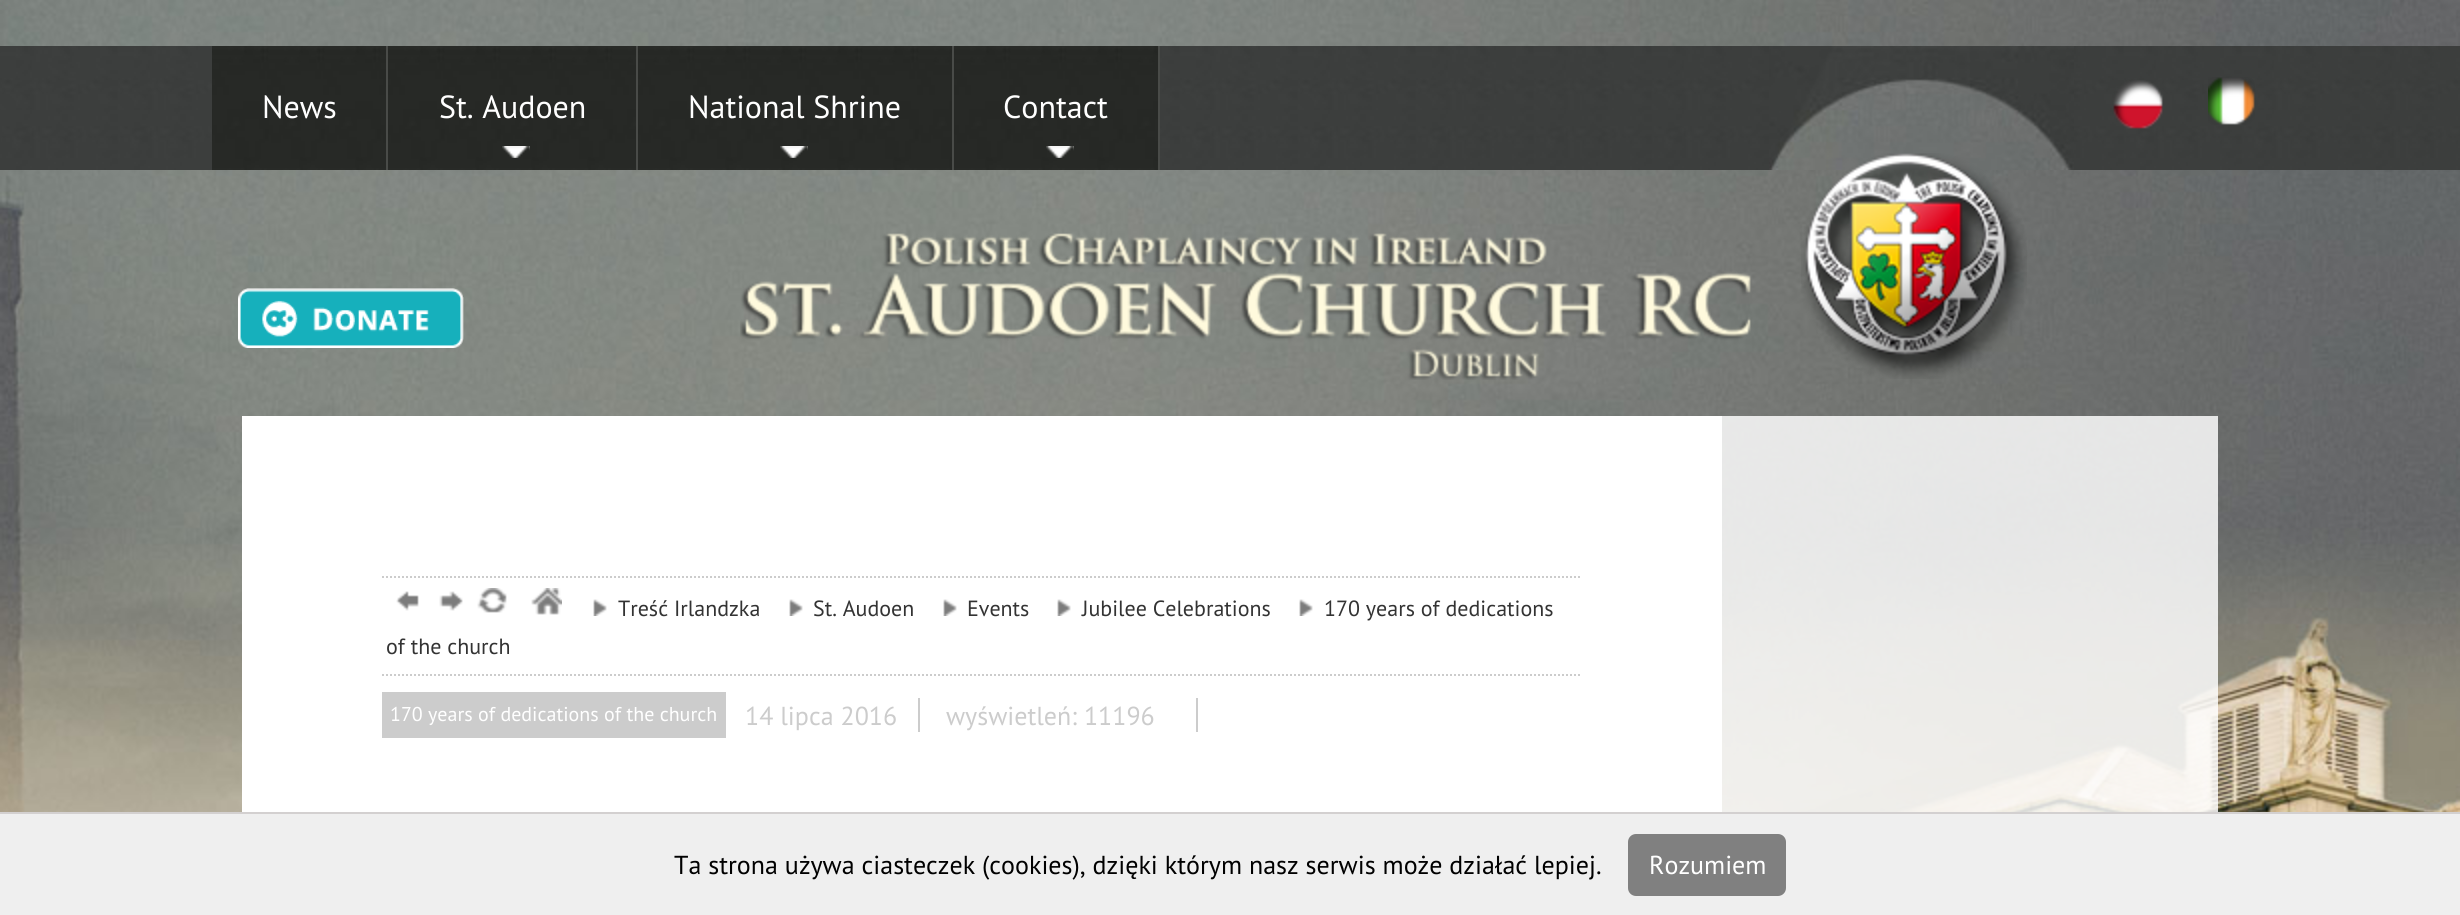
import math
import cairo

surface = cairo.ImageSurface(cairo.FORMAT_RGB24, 2460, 915)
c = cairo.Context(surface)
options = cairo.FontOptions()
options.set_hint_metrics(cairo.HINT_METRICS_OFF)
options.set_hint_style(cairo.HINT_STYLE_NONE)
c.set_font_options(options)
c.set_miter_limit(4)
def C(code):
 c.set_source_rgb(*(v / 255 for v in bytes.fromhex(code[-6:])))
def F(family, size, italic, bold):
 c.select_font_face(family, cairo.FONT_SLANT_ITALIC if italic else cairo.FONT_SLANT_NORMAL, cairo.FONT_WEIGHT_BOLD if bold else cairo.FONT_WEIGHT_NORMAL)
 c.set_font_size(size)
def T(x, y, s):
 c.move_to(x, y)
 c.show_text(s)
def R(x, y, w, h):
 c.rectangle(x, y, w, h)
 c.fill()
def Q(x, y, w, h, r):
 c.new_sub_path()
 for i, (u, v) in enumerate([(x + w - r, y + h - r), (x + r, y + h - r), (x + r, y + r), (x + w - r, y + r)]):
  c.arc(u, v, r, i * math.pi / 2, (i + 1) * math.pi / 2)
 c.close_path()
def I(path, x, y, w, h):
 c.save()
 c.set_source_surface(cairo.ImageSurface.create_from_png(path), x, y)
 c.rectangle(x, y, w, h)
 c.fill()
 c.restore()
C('ffffff')
c.paint()
I('1.png',0,0,2460,812)
I('2.png',0,46,2460,124)
I('3.png',1769,46,305,124)
I('4.png',212,46,174,124)
C('494b48')
R(386,46,2,124)
F('PT Sans',32,0,0)
C('ffffff')
T(262,118,'News')
I('5.png',388,46,248,124)
C('494b48')
R(636,46,2,124)
C('ffffff')
T(439,118,'St. Audoen')
I('6.png',502,146,28,12)
I('7.png',638,46,314,124)
C('494b48')
R(952,46,2,124)
C('ffffff')
T(688,118,'National Shrine')
I('8.png',780,146,28,12)
I('9.png',954,46,204,124)
C('494b48')
R(1158,46,2,124)
C('ffffff')
T(1003,118,'Contact')
I('10.png',1046,146,28,12)
I('11.png',2113,80,50,49)
I('12.png',2208,77,47,48)
I('13.png',740,233,1011,147)
I('14.png',1801,153,226,226)
I('15.png',238,288,226,60)
c.set_source_rgba(1,1,1,0.83)
R(1722,416,496,396)
C('ffffff')
R(242,416,1480,396)
c.new_path()
c.move_to(382,577)
c.line_to(1582,577)
C('cccccc')
c.set_dash([2,2])
c.stroke()
c.new_path()
c.move_to(382,675)
c.line_to(1582,675)
c.stroke()
I('16.png',396,591,23,20)
I('17.png',439,591,24,20)
I('18.png',477,588,30,25)
I('19.png',531,588,31,27)
I('20.png',1299,599,14,17)
F('PT Sans',22,0,0)
C('333333')
T(1324,616,'170 years of dedications')
T(386,654,'of the church')
I('20.png',593,599,14,17)
T(618,616,'Treść Irlandzka')
I('20.png',789,599,14,17)
T(813,616,'St. Audoen')
I('20.png',943,599,14,17)
T(967,616,'Events')
I('20.png',1057,599,14,17)
T(1082,616,'Jubilee Celebrations')
C('cccccc')
R(382,692,344,46)
F('PT Sans',20,0,0)
C('ffffff')
T(390,721,'170 years of dedications of the church')
F('PT Sans',26,0,0)
C('cccccc')
T(745,725,'14 lipca 2016')
R(918,698,2,34)
T(946,725,'wyświetleń: 11196')
R(1196,698,2,34)
C('efefef')
R(0,814,2460,101)
C('d3d0d0')
R(0,812,2460,2)
C('000000')
T(674,874,'Ta strona używa ciasteczek (cookies), dzięki którym nasz serwis może działać lepiej.')
C('808080')
Q(1628,834,158,62,8)
c.fill()
C('ffffff')
T(1649,874,'Rozumiem')
surface.write_to_png('o.png')
